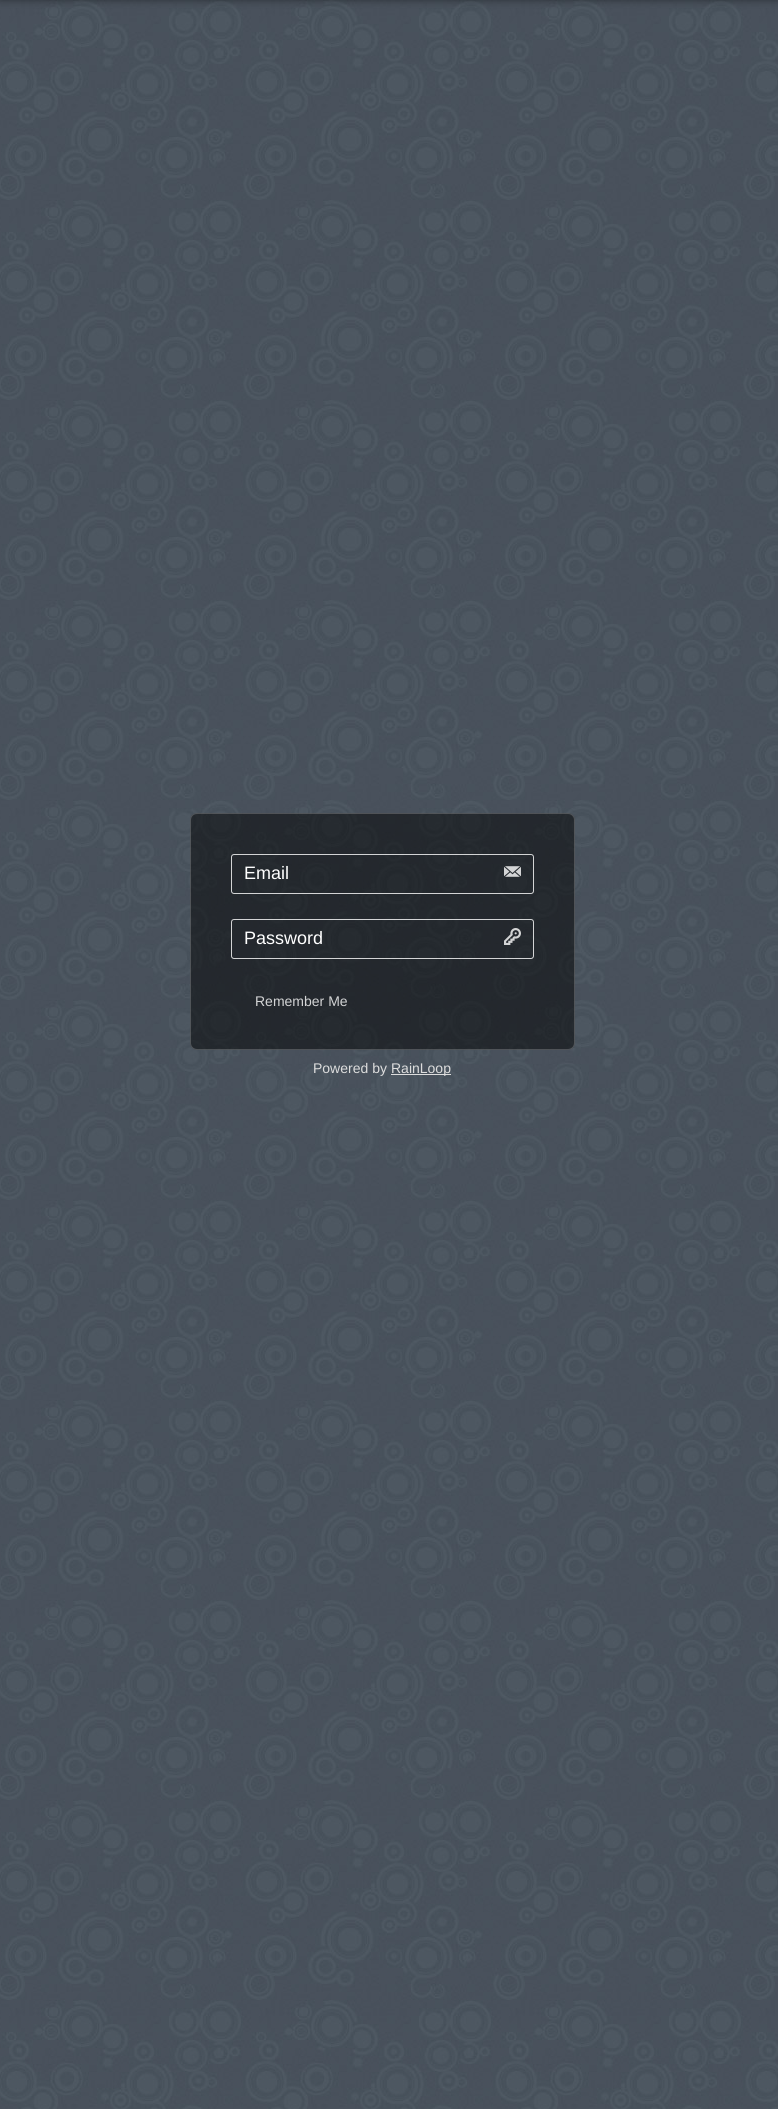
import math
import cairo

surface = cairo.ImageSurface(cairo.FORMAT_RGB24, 778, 2109)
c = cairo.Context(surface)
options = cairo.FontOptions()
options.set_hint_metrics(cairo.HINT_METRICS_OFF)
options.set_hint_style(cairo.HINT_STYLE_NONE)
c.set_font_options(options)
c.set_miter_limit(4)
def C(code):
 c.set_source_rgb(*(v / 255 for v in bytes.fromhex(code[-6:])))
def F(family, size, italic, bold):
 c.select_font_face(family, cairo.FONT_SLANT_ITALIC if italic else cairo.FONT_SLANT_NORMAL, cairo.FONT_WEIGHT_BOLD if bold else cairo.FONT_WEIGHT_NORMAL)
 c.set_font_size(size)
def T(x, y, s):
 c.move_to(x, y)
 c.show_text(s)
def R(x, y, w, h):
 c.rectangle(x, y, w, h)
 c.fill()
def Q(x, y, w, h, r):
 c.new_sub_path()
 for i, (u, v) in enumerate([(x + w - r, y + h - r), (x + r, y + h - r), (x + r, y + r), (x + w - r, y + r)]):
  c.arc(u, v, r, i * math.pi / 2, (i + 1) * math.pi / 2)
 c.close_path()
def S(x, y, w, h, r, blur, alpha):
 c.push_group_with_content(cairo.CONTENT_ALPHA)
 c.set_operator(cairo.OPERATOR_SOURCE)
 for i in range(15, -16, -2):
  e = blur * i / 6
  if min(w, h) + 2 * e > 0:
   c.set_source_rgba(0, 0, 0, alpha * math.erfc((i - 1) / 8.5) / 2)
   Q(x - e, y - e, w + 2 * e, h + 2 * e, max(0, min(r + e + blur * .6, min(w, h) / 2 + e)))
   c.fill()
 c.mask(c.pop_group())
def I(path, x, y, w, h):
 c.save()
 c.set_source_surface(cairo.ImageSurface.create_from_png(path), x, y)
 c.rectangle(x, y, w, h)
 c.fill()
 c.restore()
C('ffffff')
c.paint()
I('1.png',0,0,778,2109)
C('000000')
S(0,-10,778,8,0,5,.6)
c.set_source_rgba(0,0,0,0.5)
Q(190,813,385,237,7)
c.fill()
Q(190.5,813.5,384,236,6.5)
c.set_source_rgba(1,1,1,0.2)
c.set_line_width(1)
c.stroke()
Q(231.5,854.5,302,39,2.5)
c.set_source_rgba(1,1,1,0.8)
c.stroke()
F('Liberation Sans',18,0,0)
C('ffffff')
T(244,879,'Email')
I('2.png',504,866,17,11)
Q(231.5,919.5,302,39,2.5)
c.set_source_rgba(1,1,1,0.8)
c.stroke()
C('ffffff')
T(244,944,'Password')
I('3.png',504,928,17,17)
F('Liberation Sans',14,0,0)
C('d3d4d5')
T(255,1006,'Remember Me')
C('dddddd')
T(313,1073,'Powered by')
R(391,1074,60,1)
T(391,1073,'RainLoop')
surface.write_to_png('o.png')
